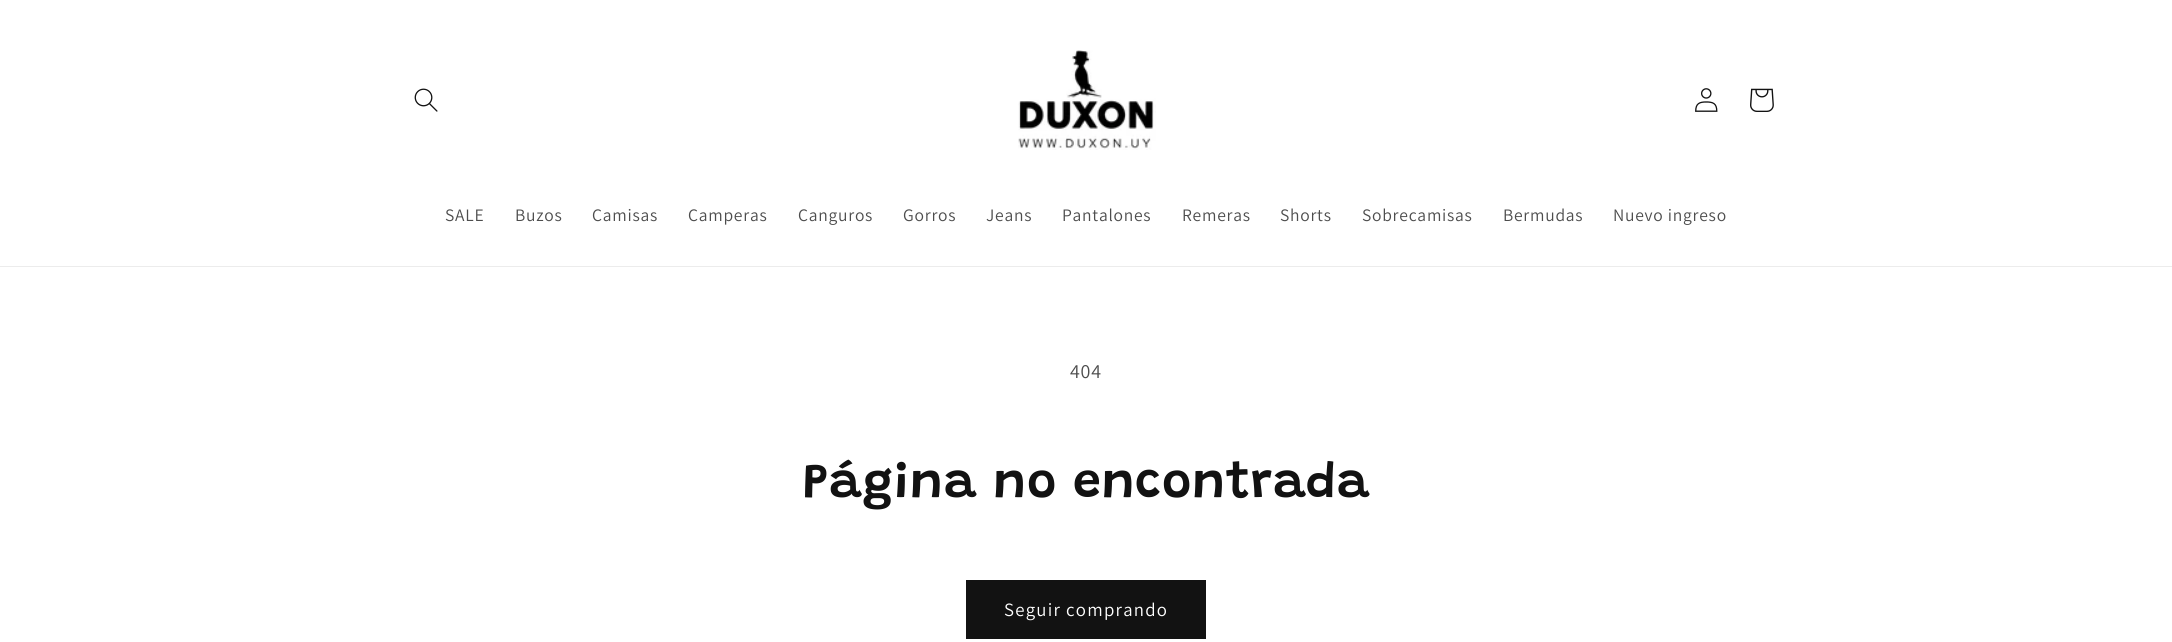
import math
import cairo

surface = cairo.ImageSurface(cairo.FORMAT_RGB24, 2172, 642)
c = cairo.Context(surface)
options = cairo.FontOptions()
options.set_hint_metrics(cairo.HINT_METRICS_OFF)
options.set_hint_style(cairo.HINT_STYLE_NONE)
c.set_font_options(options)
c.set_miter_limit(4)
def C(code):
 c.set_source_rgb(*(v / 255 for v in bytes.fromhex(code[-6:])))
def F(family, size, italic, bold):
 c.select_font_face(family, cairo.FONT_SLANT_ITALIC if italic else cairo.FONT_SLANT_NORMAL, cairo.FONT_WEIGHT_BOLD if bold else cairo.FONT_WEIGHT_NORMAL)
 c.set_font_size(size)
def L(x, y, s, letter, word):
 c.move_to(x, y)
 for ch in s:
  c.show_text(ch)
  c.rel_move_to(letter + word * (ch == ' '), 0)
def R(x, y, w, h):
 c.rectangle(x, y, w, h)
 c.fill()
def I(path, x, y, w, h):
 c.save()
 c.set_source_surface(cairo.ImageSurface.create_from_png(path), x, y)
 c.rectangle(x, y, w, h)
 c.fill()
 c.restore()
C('ffffff')
c.paint()
C('ececec')
R(0,266,2172,1)
I('1.png',414,88,24,24)
I('2.png',1018,50,138,100)
I('3.png',1695,88,23,24)
I('4.png',1750,88,24,24)
F('Assistant',17.5,0,0)
C('4d4d4d')
L(445,221,'SALE',.75,0)
L(515,221,'Buzos',.75,0)
L(592,221,'Camisas',.75,0)
L(688,221,'Camperas',.75,0)
L(798,221,'Canguros',.75,0)
L(903,221,'Gorros',.75,0)
L(986,221,'Jeans',.75,0)
L(1062,221,'Pantalones',.75,0)
L(1182,221,'Remeras',.75,0)
L(1280,221,'Shorts',.75,0)
L(1362,221,'Sobrecamisas',.75,0)
L(1503,221,'Bermudas',.75,0)
L(1613,221,'Nuevo ingreso',.75,0)
F('Assistant',20,0,0)
L(1070,378,'404',.75,0)
F('Grandstander SemiBold',50,0,0)
C('121212')
L(803,497,'Página no encontrada',.75,0)
R(966,580,240,59)
F('Assistant',18.75,0,0)
C('ffffff')
L(1004,616,'Seguir comprando',1.25,0)
surface.write_to_png('o.png')
